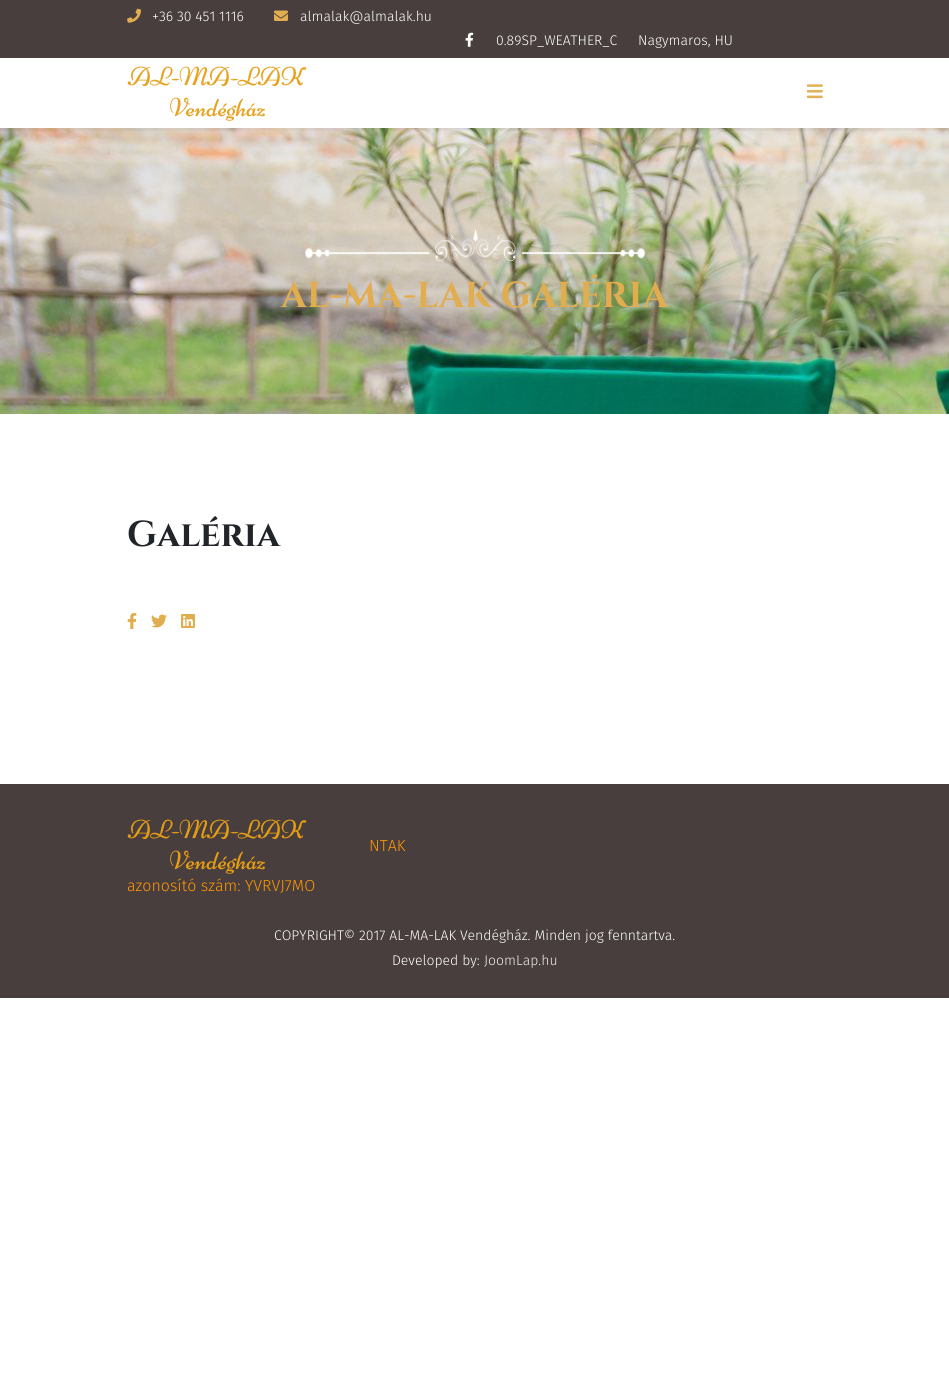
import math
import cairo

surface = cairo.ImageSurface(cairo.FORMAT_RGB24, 949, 1399)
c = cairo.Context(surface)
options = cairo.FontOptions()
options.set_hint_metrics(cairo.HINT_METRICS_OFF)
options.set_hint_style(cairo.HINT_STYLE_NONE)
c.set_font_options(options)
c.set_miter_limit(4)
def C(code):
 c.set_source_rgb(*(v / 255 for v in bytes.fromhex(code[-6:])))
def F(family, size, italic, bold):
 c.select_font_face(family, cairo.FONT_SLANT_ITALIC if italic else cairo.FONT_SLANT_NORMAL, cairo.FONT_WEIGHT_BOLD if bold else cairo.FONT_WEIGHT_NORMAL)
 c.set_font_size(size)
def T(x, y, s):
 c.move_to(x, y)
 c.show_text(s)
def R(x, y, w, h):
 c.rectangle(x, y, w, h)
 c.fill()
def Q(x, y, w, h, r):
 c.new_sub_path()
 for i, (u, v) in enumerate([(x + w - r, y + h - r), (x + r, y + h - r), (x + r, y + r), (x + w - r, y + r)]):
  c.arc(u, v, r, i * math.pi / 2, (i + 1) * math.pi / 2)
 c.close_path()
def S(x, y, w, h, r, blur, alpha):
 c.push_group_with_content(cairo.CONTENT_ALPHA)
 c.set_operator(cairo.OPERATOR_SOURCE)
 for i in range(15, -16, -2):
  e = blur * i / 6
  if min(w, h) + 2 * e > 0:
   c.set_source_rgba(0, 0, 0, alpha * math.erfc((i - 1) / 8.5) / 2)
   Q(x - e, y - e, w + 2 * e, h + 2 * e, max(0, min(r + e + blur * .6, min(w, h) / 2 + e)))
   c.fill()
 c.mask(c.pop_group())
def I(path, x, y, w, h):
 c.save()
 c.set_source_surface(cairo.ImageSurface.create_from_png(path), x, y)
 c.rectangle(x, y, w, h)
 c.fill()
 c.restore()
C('ffffff')
c.paint()
C('493e3e')
R(0,0,949,58)
I('1.png',127,8,14,15)
F('Fira Sans Light',14,0,0)
C('ffffff')
T(152,21,'+36 30 451 1116')
I('2.png',274,10,14,11)
T(300,21,'almalak@almalak.hu')
I('3.png',465,32,9,15)
T(496,45,'0.89SP_WEATHER_C')
T(638,45,'Nagymaros, HU')
I('6.png',0,128,949,286)
c.save()
c.rectangle(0,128,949,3)
c.clip()
C('000000')
S(0,61,949,70,0,1.5,.05)
c.restore()
I('4.png',127,66,180,55)
I('5.png',807,84,16,15)
I('7.png',305,229,340,32)
F('Cinzel',36,0,1)
C('e1ad4f')
T(281,307,'AL-MA-LAK GALÉRIA')
C('212529')
T(127,546,'Galéria')
I('8.png',127,613,10,16)
I('9.png',151,614,16,14)
I('10.png',181,614,14,14)
C('493e3e')
R(0,784,949,214)
I('11.png',127,819,180,55)
F('Fira Sans Light',16,0,0)
C('ff9900')
T(369,851,'NTAK')
T(127,891,'azonosító szám: YVRVJ7MO')
F('Fira Sans Light',14,0,0)
C('ffffff')
T(274,940,'COPYRIGHT© 2017 AL-MA-LAK Vendégház. Minden jog fenntartva.')
T(392,965,'Developed by:')
C('edecec')
T(484,965,'JoomLap.hu')
surface.write_to_png('o.png')
